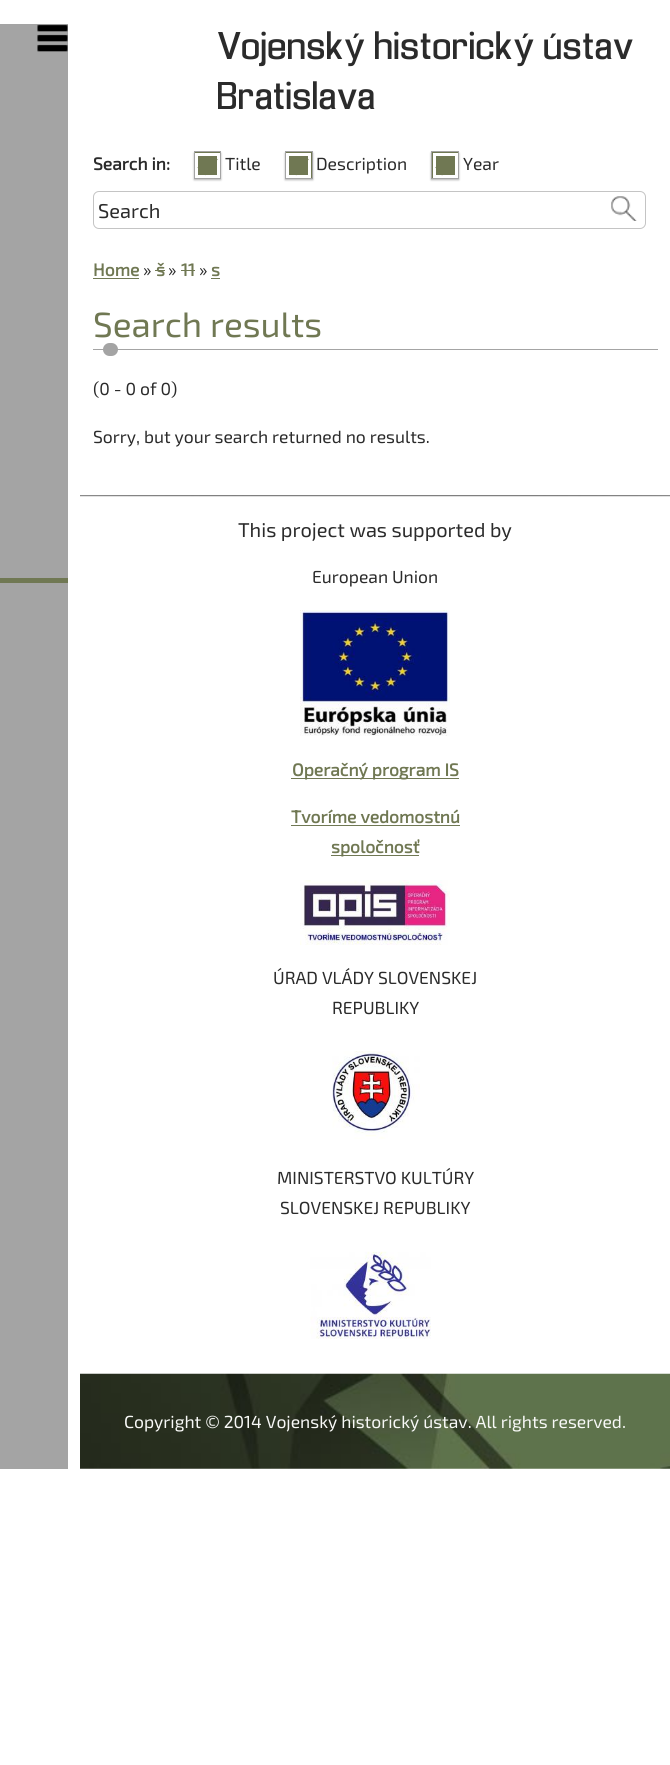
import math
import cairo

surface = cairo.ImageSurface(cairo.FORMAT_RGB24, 670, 1765)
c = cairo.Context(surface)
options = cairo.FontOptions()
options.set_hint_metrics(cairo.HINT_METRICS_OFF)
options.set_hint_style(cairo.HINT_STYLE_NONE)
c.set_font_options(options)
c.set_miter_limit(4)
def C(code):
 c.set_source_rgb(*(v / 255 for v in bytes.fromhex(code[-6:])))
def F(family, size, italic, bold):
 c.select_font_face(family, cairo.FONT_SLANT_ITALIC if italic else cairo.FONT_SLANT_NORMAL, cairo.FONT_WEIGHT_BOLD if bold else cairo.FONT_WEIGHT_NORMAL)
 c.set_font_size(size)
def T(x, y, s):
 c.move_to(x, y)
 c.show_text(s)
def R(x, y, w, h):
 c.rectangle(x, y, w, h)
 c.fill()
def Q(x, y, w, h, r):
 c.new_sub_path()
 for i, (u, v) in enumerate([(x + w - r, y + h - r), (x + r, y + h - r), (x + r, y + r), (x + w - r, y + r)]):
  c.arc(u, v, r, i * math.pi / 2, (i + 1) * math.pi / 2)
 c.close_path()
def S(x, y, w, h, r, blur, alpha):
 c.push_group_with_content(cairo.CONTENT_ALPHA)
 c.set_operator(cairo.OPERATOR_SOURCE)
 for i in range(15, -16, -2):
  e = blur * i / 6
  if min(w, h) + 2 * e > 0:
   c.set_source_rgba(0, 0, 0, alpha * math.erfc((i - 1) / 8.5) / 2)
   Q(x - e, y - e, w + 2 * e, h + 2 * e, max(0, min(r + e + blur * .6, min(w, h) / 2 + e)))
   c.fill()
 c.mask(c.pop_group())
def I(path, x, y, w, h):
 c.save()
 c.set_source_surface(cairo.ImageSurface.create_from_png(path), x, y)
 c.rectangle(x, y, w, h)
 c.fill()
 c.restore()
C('ffffff')
c.paint()
C('a4a4a4')
R(0,24,68,1445)
I('1.png',37,24,31,28)
C('707853')
R(0,578,68,5)
F('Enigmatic',36,0,0)
C('2b2b2b')
T(218,59,'Vojenský historický ústav')
T(218,109,'Bratislava')
F('Exo 2',17.5,0,1)
T(93,170,'Search in:')
C('000000')
S(194,153,27,27,0,1,.3)
C('707853')
R(195,152,25,23)
c.rectangle(196.5,154.5,22,22)
C('ffffff')
c.set_line_width(3)
c.stroke()
c.rectangle(194.5,151.5,26,27)
C('a4a4a4')
c.set_line_width(1)
c.stroke()
c.new_path()
c.move_to(199,166)
c.line_to(205,172)
c.line_to(216,158)
C('707853')
c.set_line_width(4.4)
c.stroke()
F('Exo 2',17.5,0,0)
C('2b2b2b')
T(225,170,'Title')
C('000000')
S(285,153,28,27,0,1,.3)
C('707853')
R(286,152,26,26)
c.rectangle(287.5,154.5,22,22)
C('ffffff')
c.set_line_width(3)
c.stroke()
c.rectangle(285.5,151.5,27,27)
C('a4a4a4')
c.set_line_width(1)
c.stroke()
c.new_path()
c.move_to(290.5,166)
c.line_to(296,172)
c.line_to(307,158)
C('707853')
c.set_line_width(4.4)
c.stroke()
C('2b2b2b')
T(316,170,'Description')
C('000000')
S(431,153,28,27,0,1,.3)
C('707853')
R(432,152,26,26)
c.rectangle(434.5,154.5,22,22)
C('ffffff')
c.set_line_width(3)
c.stroke()
c.rectangle(431.5,151.5,27,27)
C('a4a4a4')
c.set_line_width(1)
c.stroke()
c.new_path()
c.move_to(437,166)
c.line_to(442,172)
c.line_to(453,158)
C('707853')
c.set_line_width(4.4)
c.stroke()
C('2b2b2b')
T(463,170,'Year')
Q(93.5,191.5,552,37,5.5)
C('c4c4c4')
c.set_line_width(1)
c.stroke()
F('Exo 2',20,0,0)
C('2b2b2b')
T(98,218,'Search')
I('2.png',611,196,26,25)
F('Exo 2',17.5,0,1)
C('707853')
T(93,276,'Home')
R(93,278,46,1)
F('Exo 2',17.5,0,0)
C('2b2b2b')
T(143,276,'»')
F('Exo 2',17.5,0,1)
C('707853')
T(156,276,'š')
R(155,270,10,1)
F('Exo 2',17.5,0,0)
C('2b2b2b')
T(168,276,'»')
F('Exo 2',17.5,0,1)
C('707853')
T(181,276,'11')
R(181,270,14,1)
F('Exo 2',17.5,0,0)
C('2b2b2b')
T(199,276,'»')
F('Exo 2',17.5,0,1)
C('707853')
T(211,276,'s')
R(211,278,9,1)
C('a4a4a4')
R(93,349,565,1)
F('Exo 2',35,0,0)
C('707853')
T(93,337,'Search results')
C('a4a4a4')
Q(103,343,15,13,6.5)
c.fill()
F('Exo 2',17.5,0,0)
C('2b2b2b')
T(93,395,'(0 - 0 of 0)')
T(93,443,'Sorry, but your search returned no results.')
I('3.png',80,495,590,2)
F('Exo 2',20,0,0)
T(238,537,'This project was supported by')
F('Exo 2',17.5,0,0)
T(312,583,'European Union')
I('4.png',300,610,150,126)
C('707853')
R(291,778,168,1)
F('Exo 2',17.5,0,1)
T(292,776,'Operačný program IS')
T(291,823,'Tvoríme vedomostnú')
R(291,825,169,1)
R(331,855,88,1)
T(331,853,'spoločnosť')
I('5.png',300,880,150,65)
F('Exo 2',17.5,0,0)
C('2b2b2b')
T(273,984,'ÚRAD VLÁDY SLOVENSKEJ')
T(332,1014,'REPUBLIKY')
I('6.png',332,1051,88,88)
T(277,1184,'MINISTERSTVO KULTÚRY')
T(280,1214,'SLOVENSKEJ REPUBLIKY')
I('7.png',310,1251,121,88)
I('8.png',80,1373,590,96)
C('f8f9f7')
T(124,1428,'Copyright © 2014 Vojenský historický ústav. All rights reserved.')
surface.write_to_png('o.png')
